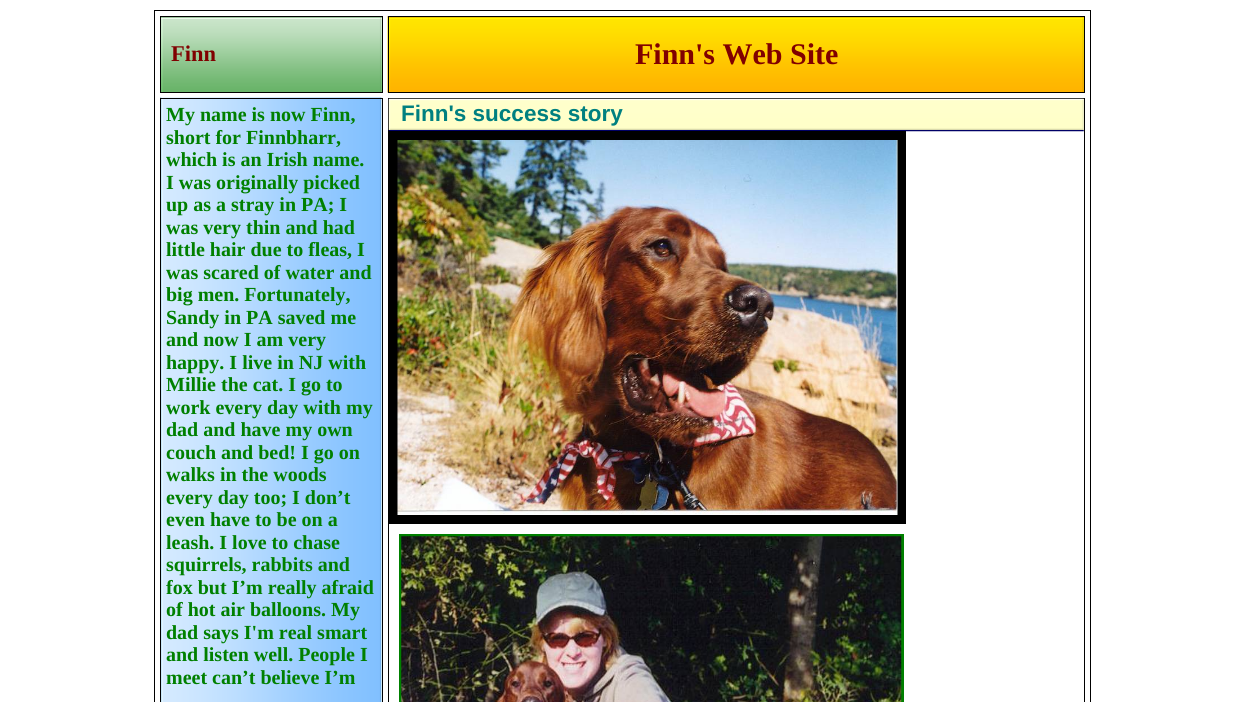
import math
import cairo

surface = cairo.ImageSurface(cairo.FORMAT_RGB24, 1245, 702)
c = cairo.Context(surface)
options = cairo.FontOptions()
options.set_hint_metrics(cairo.HINT_METRICS_OFF)
options.set_hint_style(cairo.HINT_STYLE_NONE)
c.set_font_options(options)
c.set_miter_limit(4)
def C(code):
 c.set_source_rgb(*(v / 255 for v in bytes.fromhex(code[-6:])))
def F(family, size, italic, bold):
 c.select_font_face(family, cairo.FONT_SLANT_ITALIC if italic else cairo.FONT_SLANT_NORMAL, cairo.FONT_WEIGHT_BOLD if bold else cairo.FONT_WEIGHT_NORMAL)
 c.set_font_size(size)
def T(x, y, s):
 c.move_to(x, y)
 c.show_text(s)
def I(path, x, y, w, h):
 c.save()
 c.set_source_surface(cairo.ImageSurface.create_from_png(path), x, y)
 c.rectangle(x, y, w, h)
 c.fill()
 c.restore()
C('ffffff')
c.paint()
c.rectangle(154.5,10.5,936,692)
C('000000')
c.set_line_width(1)
c.stroke()
I('1.png',161,17,221,75)
c.rectangle(160.5,16.5,222,76)
c.stroke()
F('Liberation Serif',22.5,0,1)
C('800000')
T(171,61,'Finn')
I('2.png',387,16,697,77)
c.rectangle(388.5,16.5,696,76)
C('000000')
c.stroke()
F('Liberation Serif',30,0,1)
C('800000')
T(635,64,'Finn\'s Web Site')
I('3.png',160,97,223,605)
c.rectangle(160.5,98.5,222,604)
C('000000')
c.stroke()
F('Liberation Serif',20,0,1)
C('008000')
T(166,121,'My name is now Finn,')
T(166,144,'short for Finnbharr,')
T(166,166,'which is an Irish name.')
T(166,189,'I was originally picked')
T(166,211,'up as a stray in PA; I')
T(166,234,'was very thin and had')
T(166,256,'little hair due to fleas, I')
T(166,279,'was scared of water and')
T(166,301,'big men. Fortunately,')
T(166,324,'Sandy in PA saved me')
T(166,346,'and now I am very')
T(166,369,'happy. I live in NJ with')
T(166,391,'Millie the cat. I go to')
T(166,414,'work every day with my')
T(166,436,'dad and have my own')
T(166,459,'couch and bed! I go on')
T(166,481,'walks in the woods')
T(166,504,'every day too; I don’t')
T(166,526,'even have to be on a')
T(166,549,'leash. I love to chase')
T(166,571,'squirrels, rabbits and')
T(166,594,'fox but I’m really afraid')
T(166,616,'of hot air balloons. My')
T(166,639,'dad says I\'m real smart')
T(166,661,'and listen well. People I')
T(166,684,'meet can’t believe I’m')
c.rectangle(388.5,98.5,696,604)
C('000000')
c.stroke()
I('4.png',388,98,696,32)
F('Liberation Sans',22.5,0,1)
C('008080')
T(401,121,'Finn\'s success story')
I('5.png',388,130,696,2)
c.rectangle(393.5,135.5,508,384)
C('000000')
c.set_line_width(9)
c.stroke()
I('6.png',397,140,501,375)
c.rectangle(400.5,535.5,502,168)
C('008000')
c.set_line_width(3)
c.stroke()
I('7.png',401,536,501,166)
surface.write_to_png('o.png')
